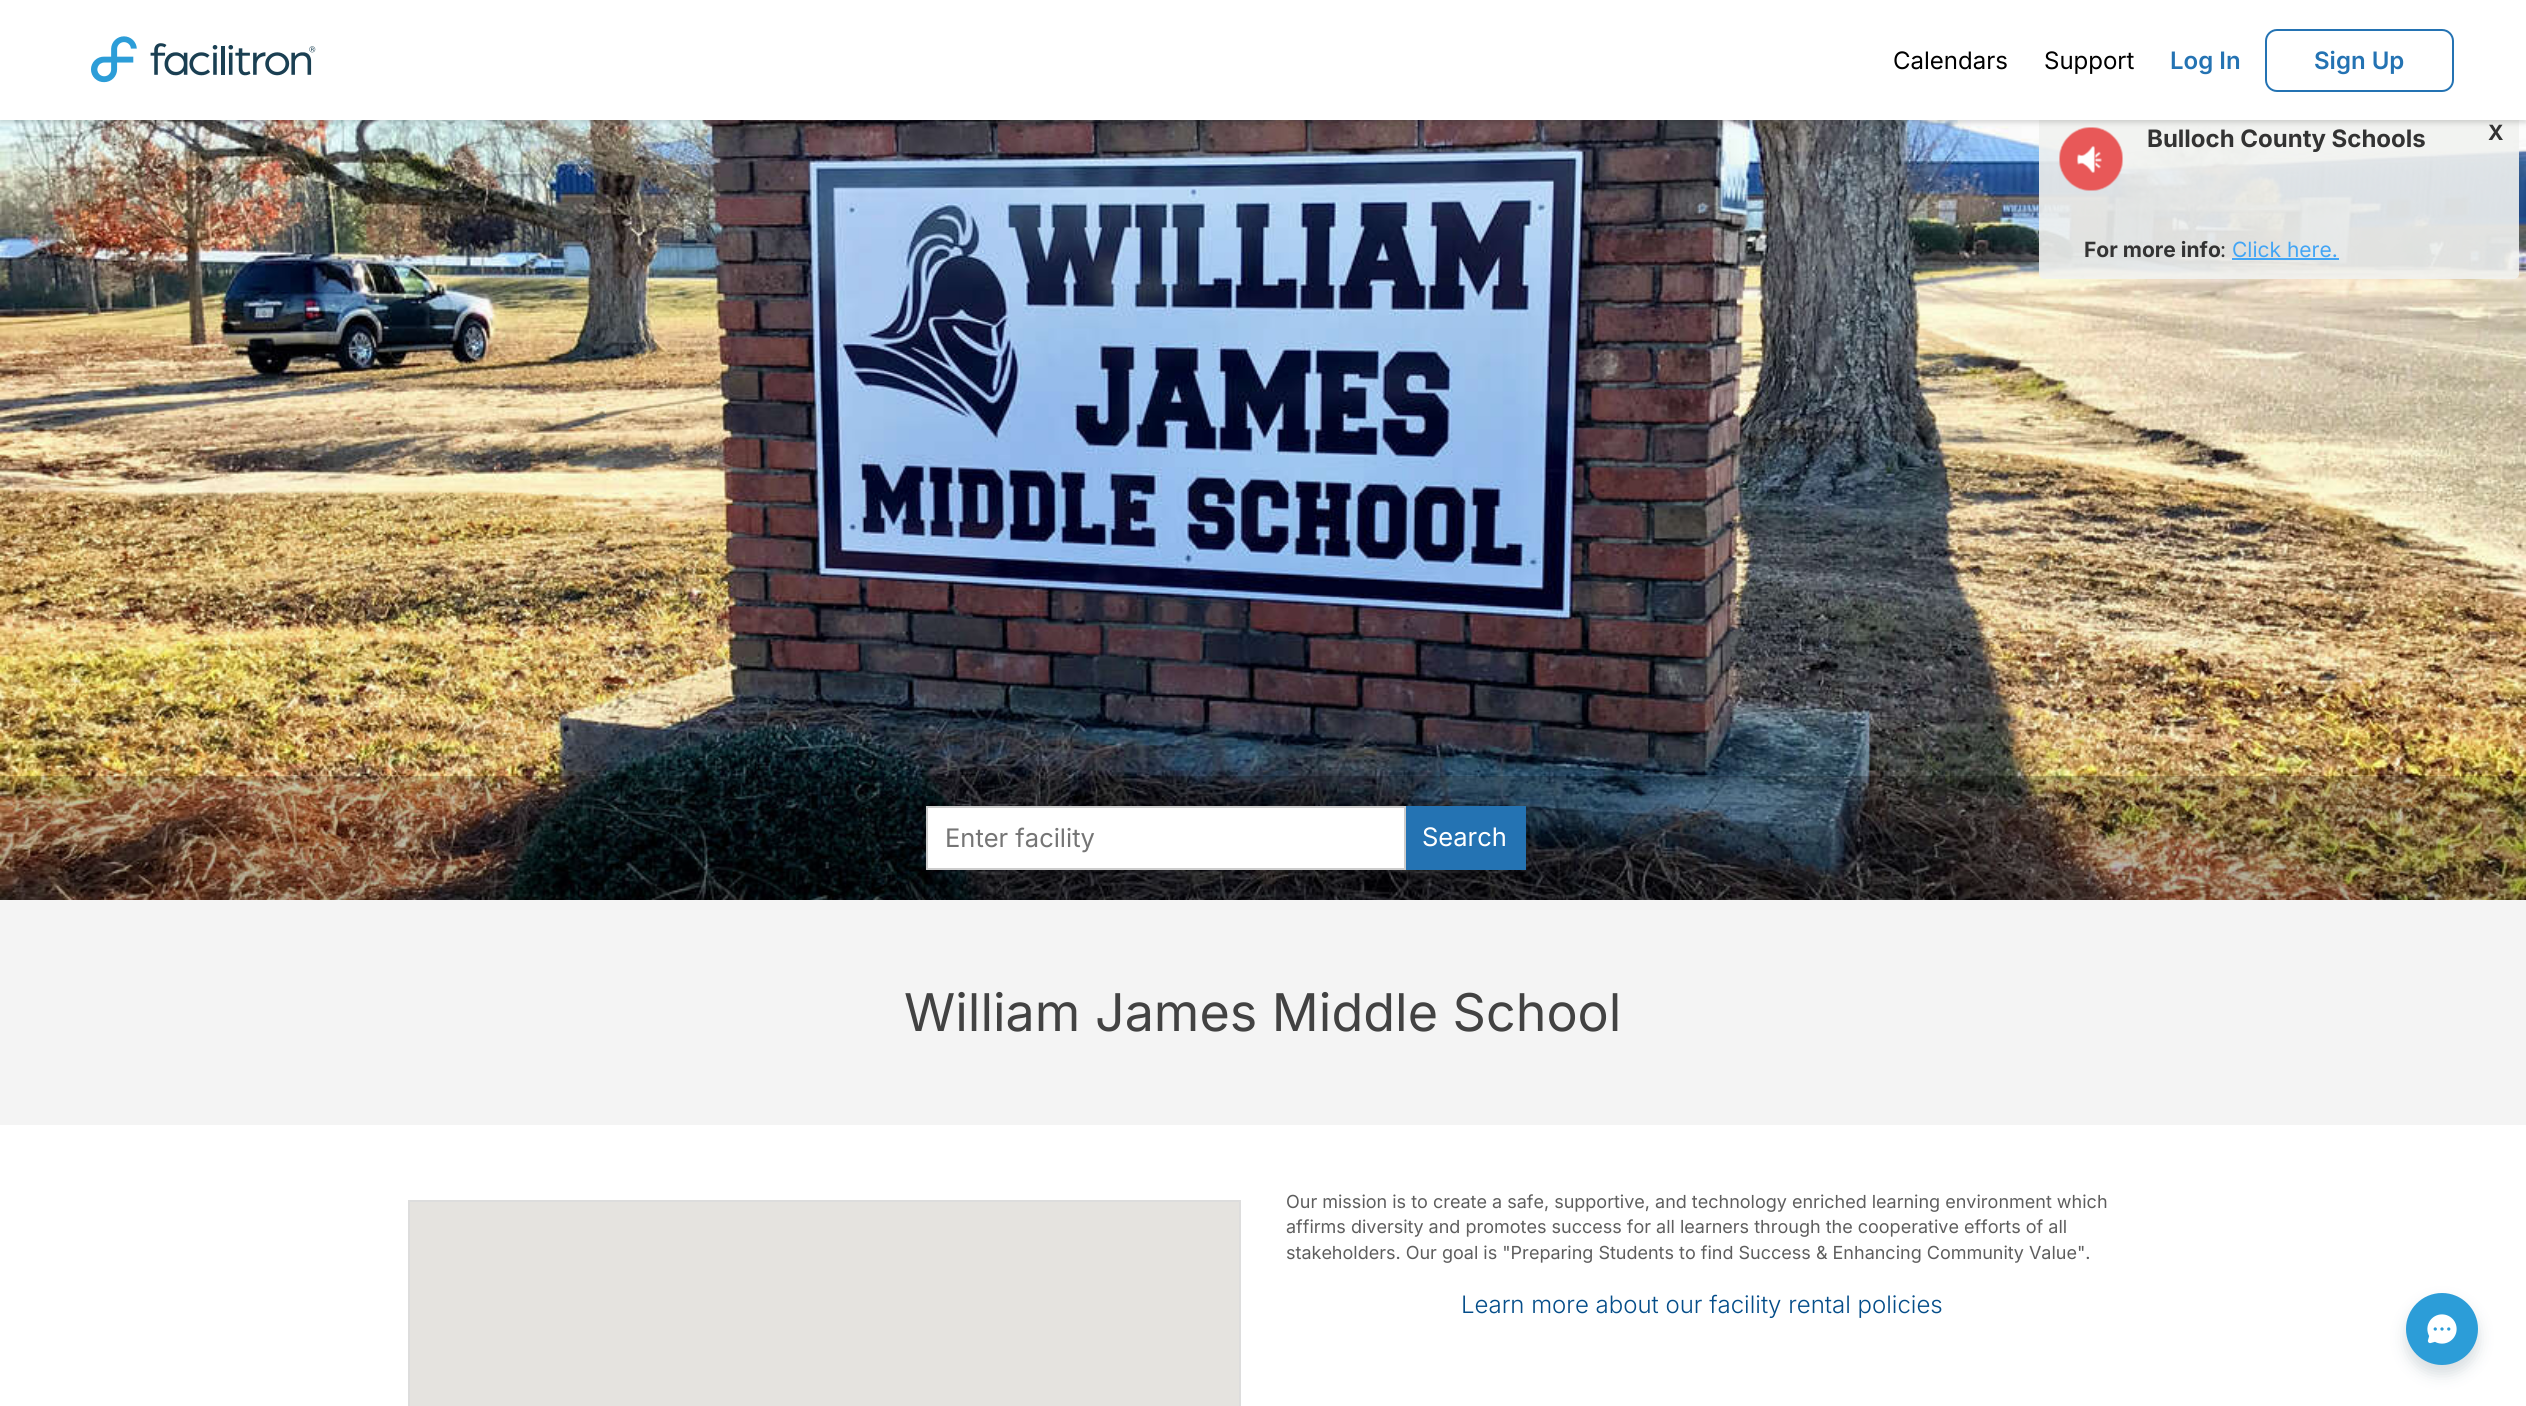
import math
import cairo

surface = cairo.ImageSurface(cairo.FORMAT_RGB24, 2526, 1406)
c = cairo.Context(surface)
options = cairo.FontOptions()
options.set_hint_metrics(cairo.HINT_METRICS_OFF)
options.set_hint_style(cairo.HINT_STYLE_NONE)
c.set_font_options(options)
c.set_miter_limit(4)
def C(code):
 c.set_source_rgb(*(v / 255 for v in bytes.fromhex(code[-6:])))
def F(family, size, italic, bold):
 c.select_font_face(family, cairo.FONT_SLANT_ITALIC if italic else cairo.FONT_SLANT_NORMAL, cairo.FONT_WEIGHT_BOLD if bold else cairo.FONT_WEIGHT_NORMAL)
 c.set_font_size(size)
def T(x, y, s):
 c.move_to(x, y)
 c.show_text(s)
def R(x, y, w, h):
 c.rectangle(x, y, w, h)
 c.fill()
def Q(x, y, w, h, r):
 c.new_sub_path()
 for i, (u, v) in enumerate([(x + w - r, y + h - r), (x + r, y + h - r), (x + r, y + r), (x + w - r, y + r)]):
  c.arc(u, v, r, i * math.pi / 2, (i + 1) * math.pi / 2)
 c.close_path()
def S(x, y, w, h, r, blur, alpha):
 c.push_group_with_content(cairo.CONTENT_ALPHA)
 c.set_operator(cairo.OPERATOR_SOURCE)
 for i in range(15, -16, -2):
  e = blur * i / 6
  if min(w, h) + 2 * e > 0:
   c.set_source_rgba(0, 0, 0, alpha * math.erfc((i - 1) / 8.5) / 2)
   Q(x - e, y - e, w + 2 * e, h + 2 * e, max(0, min(r + e + blur * .6, min(w, h) / 2 + e)))
   c.fill()
 c.mask(c.pop_group())
def I(path, x, y, w, h):
 c.save()
 c.set_source_surface(cairo.ImageSurface.create_from_png(path), x, y)
 c.rectangle(x, y, w, h)
 c.fill()
 c.restore()
C('f4f4f4')
c.paint()
I('2.png',0,120,2526,780)
c.set_source_rgba(0.945,0.949,0.941,0.9)
Q(2039,107,480,172,5)
c.fill()
I('3.png',2059,127,64,64)
C('000000')
S(0,3,2526,120,0,3,.12)
S(0,0,2526,120,0,3,.08)
C('ffffff')
R(0,0,2526,120)
I('1.png',91,36,225,47)
F('Inter',24,0,0)
C('000000')
T(1893,69,'Calendars')
T(2044,69,'Support')
F('Inter SemiBold',24,0,0)
C('2473b3')
T(2170,69,'Log In')
Q(2266,30,187,61,11)
c.stroke()
T(2314,69,'Sign Up')
F('Inter',24,0,1)
C('333333')
T(2147,147,'Bulloch County Schools')
F('Inter',21,0,1)
T(2488,140,'X')
T(2084,257,'For more info')
F('Inter',21,0,0)
T(2220,257,':')
C('42a5f5')
T(2232,257,'Click here.')
R(2232,258,107,2)
C('000000')
S(1404,807,122,65,0,1.5,.12)
C('ffffff')
c.rectangle(927,807,478,62)
c.fill_preserve()
C('cccccc')
c.stroke()
F('Inter',25.5,0,0)
C('757575')
T(945,847,'Enter facility')
C('2473b3')
R(1406,806,120,64)
C('ffffff')
T(1422,846,'Search')
F('Inter',52,0,0)
C('424242')
T(904,1031,'William James Middle School')
C('ffffff')
R(0,1125,2526,281)
c.rectangle(409,1201,831,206)
C('dddddd')
c.stroke()
C('e5e3df')
R(410,1202,829,204)
F('Inter',18,0,0)
C('5e5e5e')
T(1286,1208,'Our mission is to create a safe, supportive, and technology enriched learning environment which')
T(1286,1233,'affirms diversity and promotes success for all learners through the cooperative efforts of all')
T(1286,1259,'stakeholders. Our goal is "Preparing Students to find Success & Enhancing Community Value".')
F('Inter Light',24,0,0)
C('044d89')
T(1461,1313,'Learn more about our facility rental policies')
C('1a3f52')
S(2406,1302,72,72,36,7.5,.18)
C('2c9dd8')
c.arc(2442,1329,36,0,2 * math.pi)
c.fill()
I('4.png',2427,1314,30,30)
surface.write_to_png('o.png')
